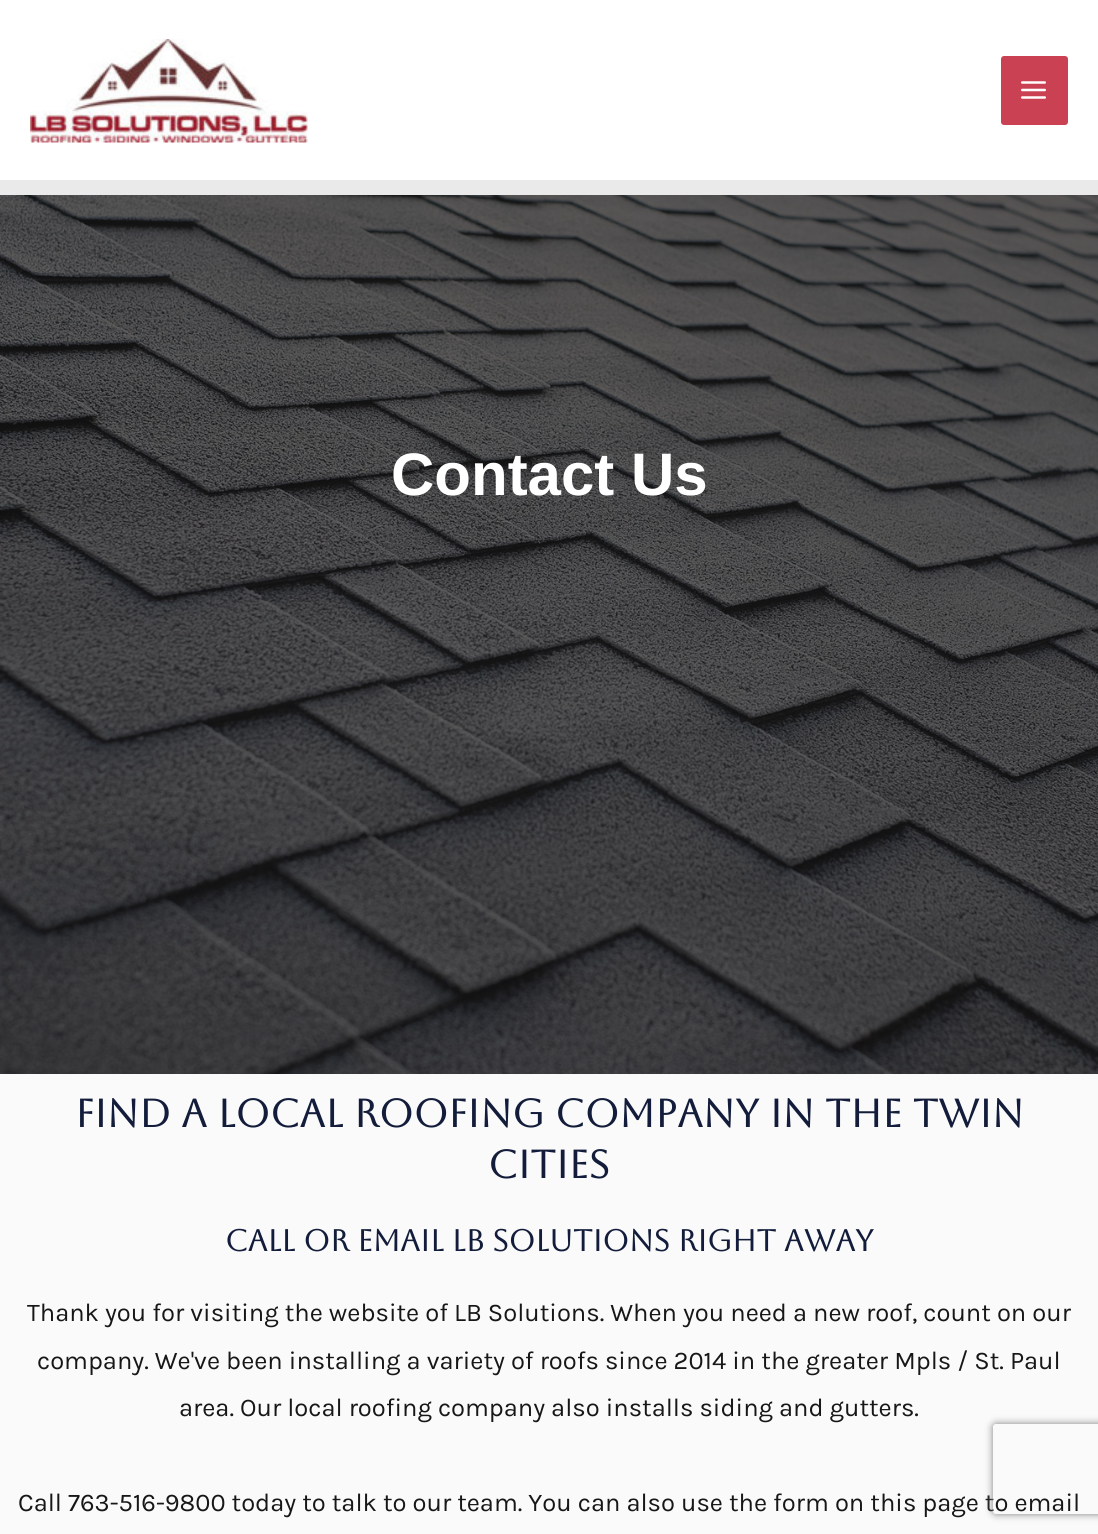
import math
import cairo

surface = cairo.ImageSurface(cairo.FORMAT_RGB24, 1098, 1534)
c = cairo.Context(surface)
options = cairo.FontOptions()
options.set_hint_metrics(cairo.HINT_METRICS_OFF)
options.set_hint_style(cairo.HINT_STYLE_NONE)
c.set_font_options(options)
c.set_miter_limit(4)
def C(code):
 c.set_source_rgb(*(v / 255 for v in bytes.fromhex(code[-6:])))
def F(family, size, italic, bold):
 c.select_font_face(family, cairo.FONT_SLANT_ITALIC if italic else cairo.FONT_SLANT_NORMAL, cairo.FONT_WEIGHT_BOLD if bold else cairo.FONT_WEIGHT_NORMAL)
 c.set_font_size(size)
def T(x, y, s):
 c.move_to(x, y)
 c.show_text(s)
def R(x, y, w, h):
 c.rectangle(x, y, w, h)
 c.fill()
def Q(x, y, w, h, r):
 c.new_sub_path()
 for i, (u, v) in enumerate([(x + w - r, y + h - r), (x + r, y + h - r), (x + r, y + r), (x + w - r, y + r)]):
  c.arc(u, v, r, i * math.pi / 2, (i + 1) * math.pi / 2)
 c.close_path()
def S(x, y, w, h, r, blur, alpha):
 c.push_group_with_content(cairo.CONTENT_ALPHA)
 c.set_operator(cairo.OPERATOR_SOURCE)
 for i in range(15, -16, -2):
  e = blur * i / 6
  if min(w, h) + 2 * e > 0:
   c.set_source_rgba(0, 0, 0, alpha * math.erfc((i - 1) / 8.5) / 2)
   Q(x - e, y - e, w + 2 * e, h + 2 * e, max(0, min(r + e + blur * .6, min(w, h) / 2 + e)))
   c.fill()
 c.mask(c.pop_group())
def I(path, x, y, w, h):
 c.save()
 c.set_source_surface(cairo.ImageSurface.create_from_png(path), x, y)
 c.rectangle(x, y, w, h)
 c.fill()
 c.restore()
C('fafafa')
c.paint()
C('ffffff')
R(0,0,1098,180)
C('eaeaea')
R(0,180,1098,15)
I('1.png',30,39,278,104)
C('cb4154')
Q(1001,56,67,69,3)
c.fill()
I('2.png',1021,81,25,18)
I('3.png',0,195,1098,879)
F('Liberation Sans',60,0,1)
C('ffffff')
T(391,495,'Contact Us')
F('Aboreto',39,0,1)
C('131d3b')
T(75,1127,'Find a Local Roofing Company in the Twin')
T(488,1178,'Cities')
F('Aboreto',30,0,1)
T(225,1251,'Call or email LB Solutions right away')
F('Karla',25.5,0,0)
C('171717')
T(27,1321,'Thank you for visiting the website of LB Solutions. When you need a new roof, count on our')
T(37,1369,'company. We\'ve been installing a variety of roofs since 2014 in the greater Mpls / St. Paul')
T(179,1416,'area. Our local roofing company also installs siding and gutters.')
T(18,1511,'Call 763-516-9800 today to talk to our team. You can also use the form on this page to email')
c.save()
c.set_fill_rule(cairo.FILL_RULE_EVEN_ODD)
c.new_path()
c.move_to(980,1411)
c.line_to(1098,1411)
c.line_to(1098,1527)
c.line_to(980,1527)
c.close_path()
c.move_to(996,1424)
c.line_to(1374,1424)
c.curve_to(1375.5,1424,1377,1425.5,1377,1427)
c.line_to(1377,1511)
c.curve_to(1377,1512.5,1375.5,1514,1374,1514)
c.line_to(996,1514)
c.curve_to(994.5,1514,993,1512.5,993,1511)
c.line_to(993,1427)
c.curve_to(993,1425.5,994.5,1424,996,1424)
c.close_path()
c.clip()
C('808080')
S(993,1424,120,90,3,4,1)
c.restore()
surface.write_to_png('o.png')
